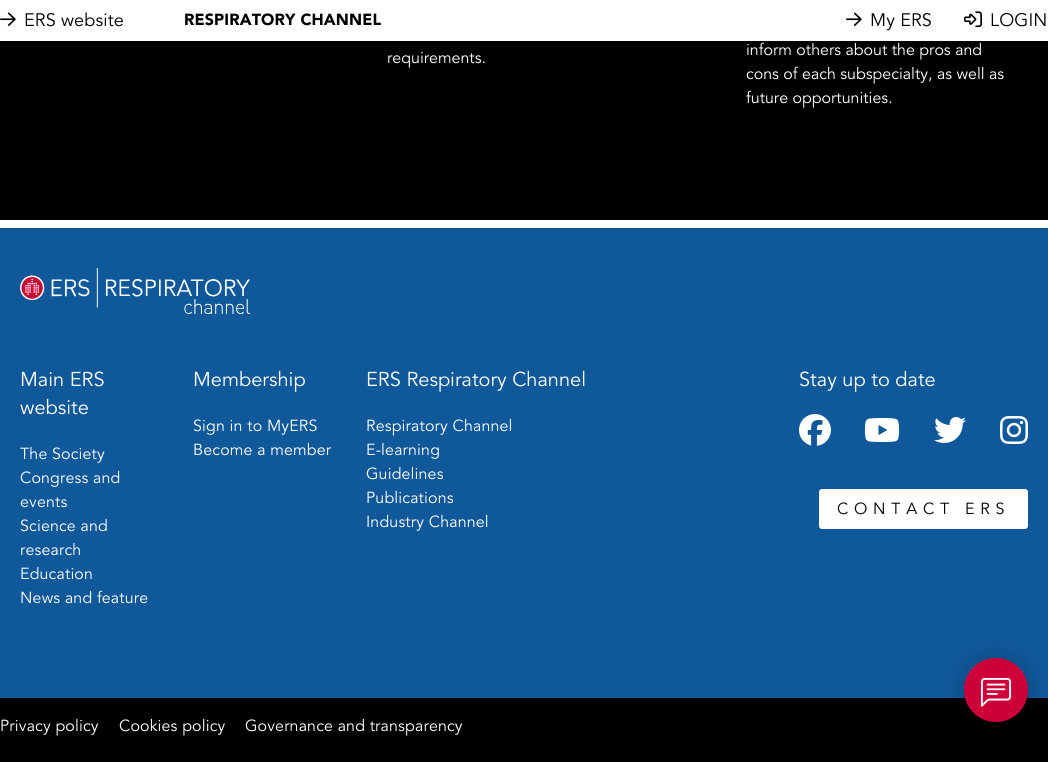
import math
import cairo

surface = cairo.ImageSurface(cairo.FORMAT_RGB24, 1048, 762)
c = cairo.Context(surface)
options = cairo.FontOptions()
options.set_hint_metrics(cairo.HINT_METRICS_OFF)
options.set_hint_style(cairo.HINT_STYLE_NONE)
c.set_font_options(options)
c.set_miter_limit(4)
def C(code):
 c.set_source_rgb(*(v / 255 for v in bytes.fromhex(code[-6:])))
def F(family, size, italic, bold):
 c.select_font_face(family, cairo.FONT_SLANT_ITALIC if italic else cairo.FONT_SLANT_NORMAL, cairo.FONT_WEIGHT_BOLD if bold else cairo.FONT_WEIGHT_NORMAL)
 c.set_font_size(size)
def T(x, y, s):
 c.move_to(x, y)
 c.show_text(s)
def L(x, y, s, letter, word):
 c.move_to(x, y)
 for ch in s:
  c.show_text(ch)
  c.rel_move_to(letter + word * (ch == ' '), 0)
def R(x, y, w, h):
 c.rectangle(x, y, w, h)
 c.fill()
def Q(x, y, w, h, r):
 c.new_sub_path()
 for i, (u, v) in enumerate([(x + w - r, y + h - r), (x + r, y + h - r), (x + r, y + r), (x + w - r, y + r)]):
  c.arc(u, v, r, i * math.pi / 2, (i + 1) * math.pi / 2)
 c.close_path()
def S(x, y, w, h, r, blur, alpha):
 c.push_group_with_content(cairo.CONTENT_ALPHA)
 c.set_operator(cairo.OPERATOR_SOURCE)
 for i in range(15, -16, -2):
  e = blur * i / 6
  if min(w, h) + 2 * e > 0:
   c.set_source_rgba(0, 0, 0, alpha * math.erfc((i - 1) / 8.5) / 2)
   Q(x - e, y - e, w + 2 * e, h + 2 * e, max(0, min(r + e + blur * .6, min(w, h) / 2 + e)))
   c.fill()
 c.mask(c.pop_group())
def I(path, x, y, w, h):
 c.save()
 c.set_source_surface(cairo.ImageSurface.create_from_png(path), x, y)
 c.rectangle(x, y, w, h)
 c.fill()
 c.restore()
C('000000')
c.paint()
C('ffffff')
R(0,0,1048,41)
I('1.png',0,12,16,14)
F('Avenir',18,0,0)
C('000000')
L(24,26,'ERS website',.15,0)
F('Avenir Black',16,0,0)
L(184,25,'RESPIRATORY CHANNEL',.15,0)
I('1.png',846,12,16,14)
F('Avenir',18,0,0)
L(870,26,'My ERS',.15,0)
I('2.png',964,11,18,17)
L(990,26,'LOGIN',.15,0)
F('Avenir',16,0,0)
C('ffffff')
T(387,63,'requirements.')
T(746,55,'inform others about the pros and')
T(746,79,'cons of each subspecialty, as well as')
T(746,103,'future opportunities.')
R(0,220,1048,8)
C('0f589a')
R(0,228,1048,470)
I('3.png',20,268,230,46)
F('Avenir',20,0,0)
C('ffffff')
T(20,386,'Main ERS')
T(20,414,'website')
F('Avenir',16,0,0)
L(20,459,'The Society',.15,0)
L(20,483,'Congress and',.15,0)
L(20,507,'events',.15,0)
L(20,531,'Science and',.15,0)
L(20,555,'research',.15,0)
L(20,579,'Education',.15,0)
L(20,603,'News and feature',.15,0)
F('Avenir',20,0,0)
T(193,386,'Membership')
F('Avenir',16,0,0)
L(193,431,'Sign in to MyERS',.15,0)
L(193,455,'Become a member',.15,0)
F('Avenir',20,0,0)
T(366,386,'ERS Respiratory Channel')
F('Avenir',16,0,0)
L(366,431,'Respiratory Channel',.15,0)
L(366,455,'E-learning',.15,0)
L(366,479,'Guidelines',.15,0)
L(366,503,'Publications',.15,0)
L(366,527,'Industry Channel',.15,0)
F('Avenir',20,0,0)
T(799,386,'Stay up to date')
I('4.png',799,414,32,32)
I('5.png',864,418,36,24)
I('6.png',934,417,32,26)
I('7.png',1000,416,28,28)
Q(819,489,209,40,3)
c.fill()
F('Avenir',16,0,0)
C('000000')
L(837,514,'CONTACT ERS',5.75,0)
C('ffffff')
L(0,731,'Privacy policy',.15,0)
L(119,731,'Cookies policy',.15,0)
L(245,731,'Governance and transparency',.15,0)
C('000000')
S(964,658,64,64,32,10,.2)
C('ce003a')
c.arc(996,690,31,0,2 * math.pi)
c.fill_preserve()
c.stroke()
I('8.png',981,678,30,29)
surface.write_to_png('o.png')
